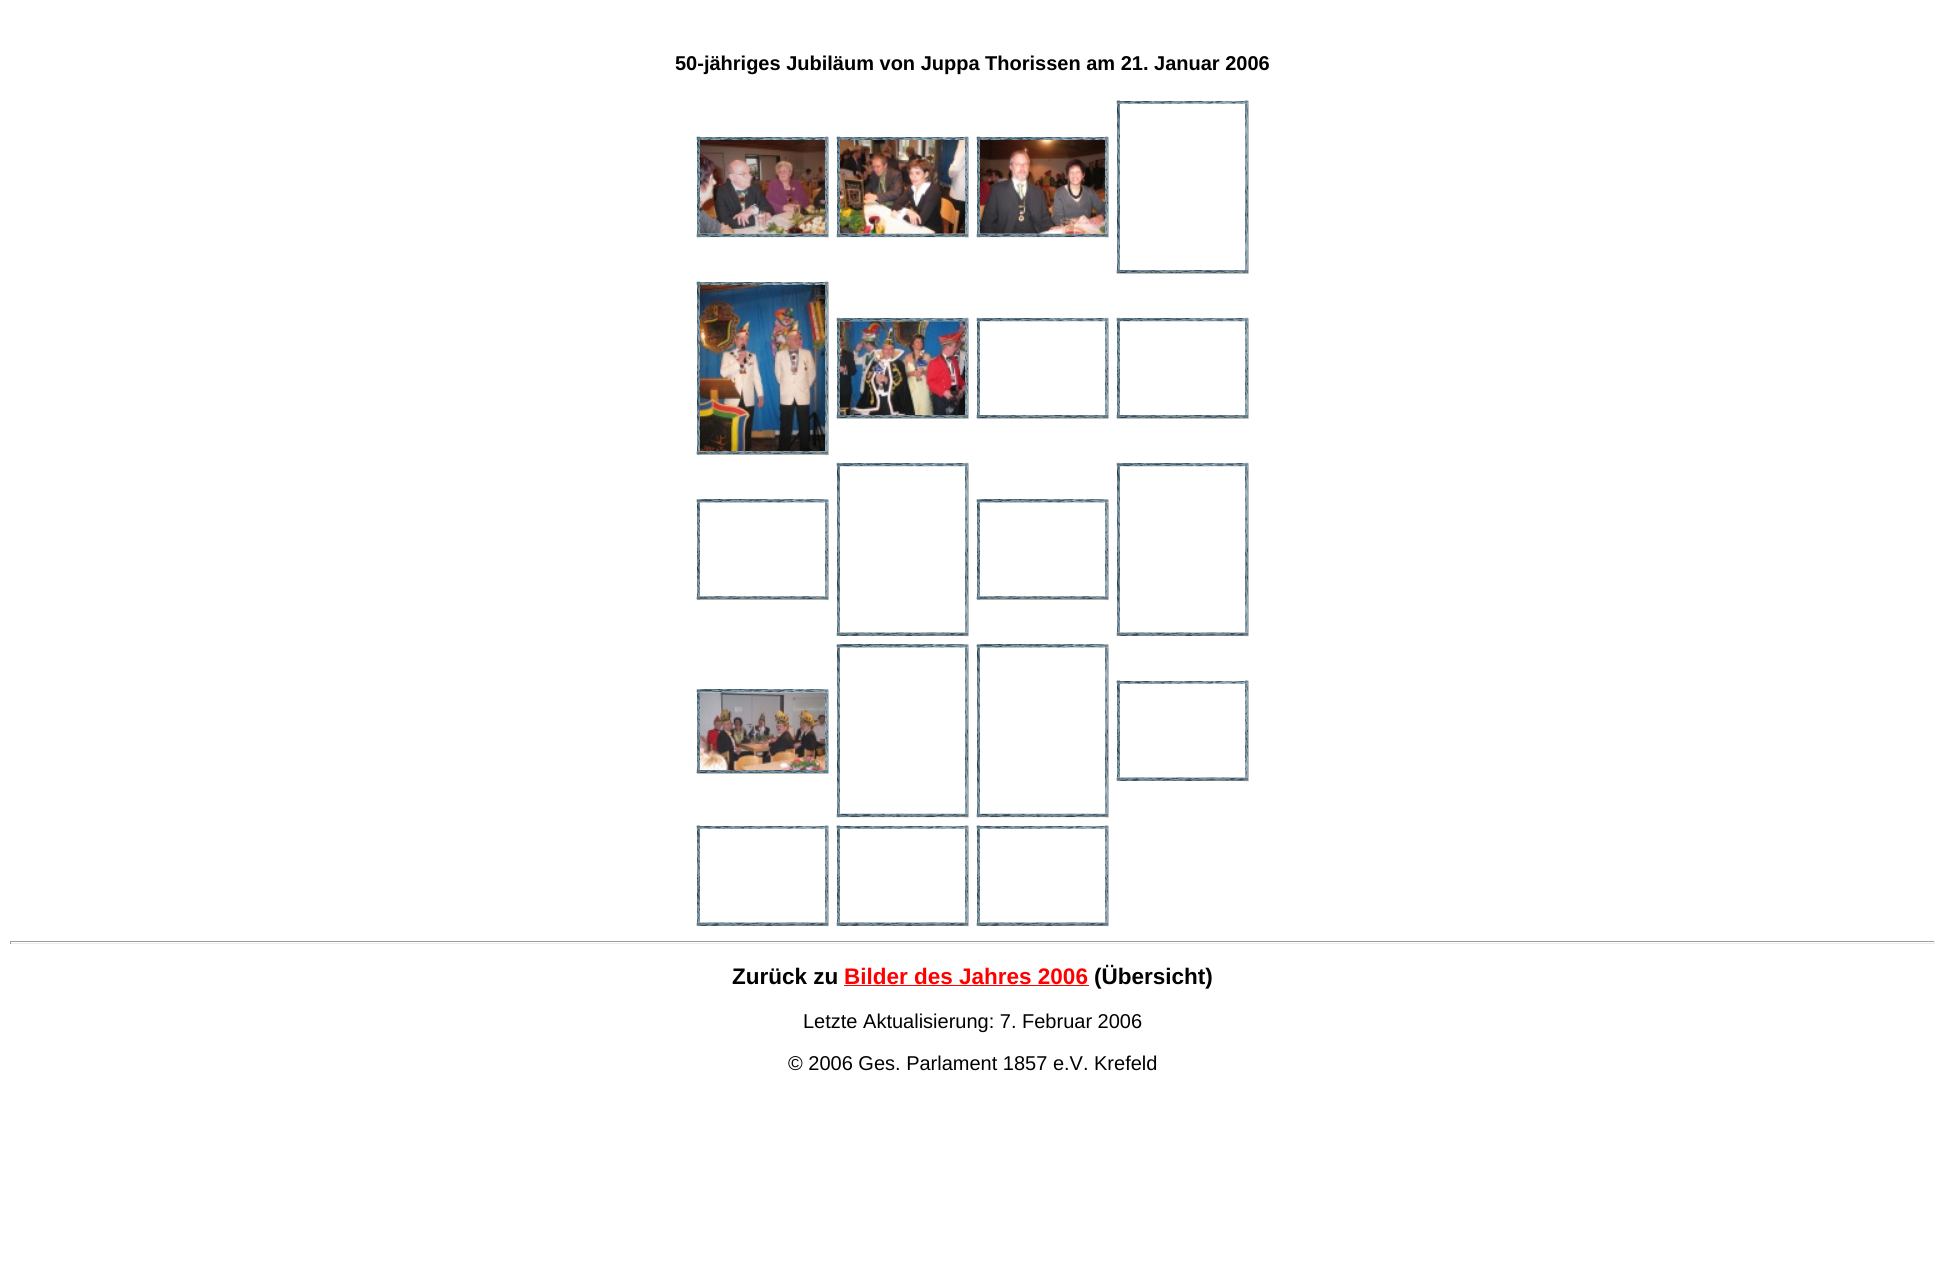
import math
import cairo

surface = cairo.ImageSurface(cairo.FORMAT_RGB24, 1944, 1281)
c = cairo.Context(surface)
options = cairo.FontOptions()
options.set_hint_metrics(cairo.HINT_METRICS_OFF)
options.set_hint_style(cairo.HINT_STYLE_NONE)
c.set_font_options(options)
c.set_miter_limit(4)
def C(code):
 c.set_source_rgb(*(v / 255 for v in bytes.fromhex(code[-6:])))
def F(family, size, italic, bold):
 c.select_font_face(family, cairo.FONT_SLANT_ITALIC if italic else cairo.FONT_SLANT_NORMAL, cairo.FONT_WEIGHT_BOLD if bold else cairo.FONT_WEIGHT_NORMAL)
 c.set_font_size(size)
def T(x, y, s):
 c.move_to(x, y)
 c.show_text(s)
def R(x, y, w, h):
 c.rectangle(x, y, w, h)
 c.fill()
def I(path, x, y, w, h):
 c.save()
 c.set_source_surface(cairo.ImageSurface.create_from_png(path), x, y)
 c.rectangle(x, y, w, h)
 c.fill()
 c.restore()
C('ffffff')
c.paint()
F('Liberation Sans',20,0,1)
C('000000')
T(675,70,'50-jähriges Jubiläum von Juppa Thorissen am 21. Januar 2006')
I('1.png',696,136,4,4)
I('2.png',700,137,125,3)
I('3.png',825,136,4,4)
I('4.png',697,140,3,94)
I('5.png',700,140,125,94)
I('6.png',825,140,4,94)
I('7.png',696,233,4,5)
I('8.png',700,233,125,5)
I('9.png',825,233,4,5)
I('1.png',836,136,4,4)
I('2.png',840,137,125,3)
I('3.png',965,136,4,4)
I('10.png',837,140,3,94)
I('11.png',840,140,125,94)
I('6.png',965,140,4,94)
I('12.png',836,233,4,5)
I('13.png',840,233,125,5)
I('9.png',965,233,4,5)
I('1.png',976,136,4,4)
I('2.png',980,137,125,3)
I('3.png',1105,136,4,4)
I('10.png',977,140,3,94)
I('14.png',980,140,125,94)
I('15.png',1105,140,4,94)
I('12.png',976,233,4,5)
I('16.png',980,233,125,5)
I('9.png',1105,233,4,5)
I('17.png',1116,100,4,4)
I('18.png',1120,101,125,3)
I('19.png',1245,100,4,4)
I('20.png',1117,103,3,167)
I('21.png',1245,103,4,167)
I('22.png',1116,270,4,4)
I('23.png',1120,270,125,4)
I('24.png',1245,270,4,4)
I('1.png',696,281,4,4)
I('2.png',700,282,125,3)
I('3.png',825,281,4,4)
I('25.png',697,285,3,167)
I('26.png',700,285,125,167)
I('27.png',825,285,4,167)
I('28.png',696,451,4,5)
I('29.png',700,451,125,4)
I('30.png',825,451,4,5)
I('31.png',836,317,4,5)
I('32.png',840,318,125,4)
I('33.png',965,317,4,5)
I('34.png',837,321,3,94)
I('35.png',840,321,125,94)
I('36.png',965,321,4,94)
I('37.png',836,415,4,4)
I('38.png',840,415,125,4)
I('39.png',965,415,4,4)
I('31.png',976,317,4,5)
I('32.png',980,318,125,4)
I('33.png',1105,317,4,5)
I('34.png',977,321,3,94)
I('40.png',1105,321,4,94)
I('37.png',976,415,4,4)
I('38.png',980,415,125,4)
I('39.png',1105,415,4,4)
I('41.png',1116,317,4,5)
I('42.png',1120,318,125,4)
I('43.png',1245,317,4,5)
I('44.png',1117,321,3,94)
I('40.png',1245,321,4,94)
I('22.png',1116,415,4,4)
I('23.png',1120,415,125,4)
I('24.png',1245,415,4,4)
I('45.png',696,499,4,4)
I('46.png',700,499,125,4)
I('47.png',825,499,4,4)
I('48.png',697,502,3,95)
I('49.png',825,502,4,95)
I('28.png',696,596,4,5)
I('50.png',700,596,125,4)
I('30.png',825,596,4,5)
I('31.png',836,462,4,5)
I('32.png',840,463,125,4)
I('33.png',965,462,4,5)
I('51.png',837,466,3,167)
I('52.png',965,466,4,167)
I('53.png',836,632,4,5)
I('54.png',840,632,125,4)
I('55.png',965,632,4,5)
I('45.png',976,499,4,4)
I('46.png',980,499,125,4)
I('47.png',1105,499,4,4)
I('56.png',977,502,3,95)
I('57.png',1105,502,4,95)
I('28.png',976,596,4,5)
I('50.png',980,596,125,4)
I('30.png',1105,596,4,5)
I('41.png',1116,462,4,5)
I('42.png',1120,463,125,4)
I('43.png',1245,462,4,5)
I('58.png',1117,466,3,167)
I('59.png',1245,466,4,167)
I('60.png',1116,632,4,5)
I('61.png',1120,632,125,4)
I('62.png',1245,632,4,5)
I('45.png',696,689,4,4)
I('46.png',700,689,125,4)
I('47.png',825,689,4,4)
I('63.png',697,692,3,78)
I('64.png',700,692,125,78)
I('65.png',825,692,4,78)
I('37.png',696,770,4,4)
I('38.png',700,770,125,4)
I('39.png',825,770,4,4)
I('45.png',836,644,4,4)
I('46.png',840,644,125,4)
I('47.png',965,644,4,4)
I('66.png',837,647,3,167)
I('67.png',965,647,4,167)
I('12.png',836,813,4,5)
I('68.png',840,813,125,5)
I('9.png',965,813,4,5)
I('45.png',976,644,4,4)
I('46.png',980,644,125,4)
I('47.png',1105,644,4,4)
I('66.png',977,647,3,167)
I('69.png',1105,647,4,167)
I('12.png',976,813,4,5)
I('68.png',980,813,125,5)
I('9.png',1105,813,4,5)
I('17.png',1116,680,4,4)
I('18.png',1120,681,125,3)
I('19.png',1245,680,4,4)
I('70.png',1117,683,3,95)
I('71.png',1245,683,4,95)
I('60.png',1116,777,4,5)
I('61.png',1120,777,125,4)
I('62.png',1245,777,4,5)
I('72.png',696,825,4,4)
I('73.png',700,826,125,3)
I('74.png',825,825,4,4)
I('75.png',697,828,3,95)
I('76.png',825,828,4,95)
I('53.png',696,922,4,5)
I('54.png',700,922,125,4)
I('55.png',825,922,4,5)
I('72.png',836,825,4,4)
I('73.png',840,826,125,3)
I('74.png',965,825,4,4)
I('77.png',837,828,3,95)
I('76.png',965,828,4,95)
I('53.png',836,922,4,5)
I('54.png',840,922,125,4)
I('55.png',965,922,4,5)
I('72.png',976,825,4,4)
I('73.png',980,826,125,3)
I('74.png',1105,825,4,4)
I('77.png',977,828,3,95)
I('71.png',1105,828,4,95)
I('53.png',976,922,4,5)
I('54.png',980,922,125,4)
I('55.png',1105,922,4,5)
C('9f9f9f')
R(10,941,1925,1)
C('eeeeee')
R(1934,941,1,3)
R(10,943,1925,1)
C('9f9f9f')
R(10,941,1,3)
F('Liberation Sans',22.5,0,1)
C('000000')
T(732,984,'Zurück zu')
C('ff0000')
T(844,984,'Bilder des Jahres 2006')
R(844,985,245,1)
C('000000')
T(1094,984,'(Übersicht)')
F('Liberation Sans',20,0,0)
T(803,1028,'Letzte Aktualisierung: 7. Februar 2006')
T(788,1070,'© 2006 Ges. Parlament 1857 e.V. Krefeld')
surface.write_to_png('o.png')
